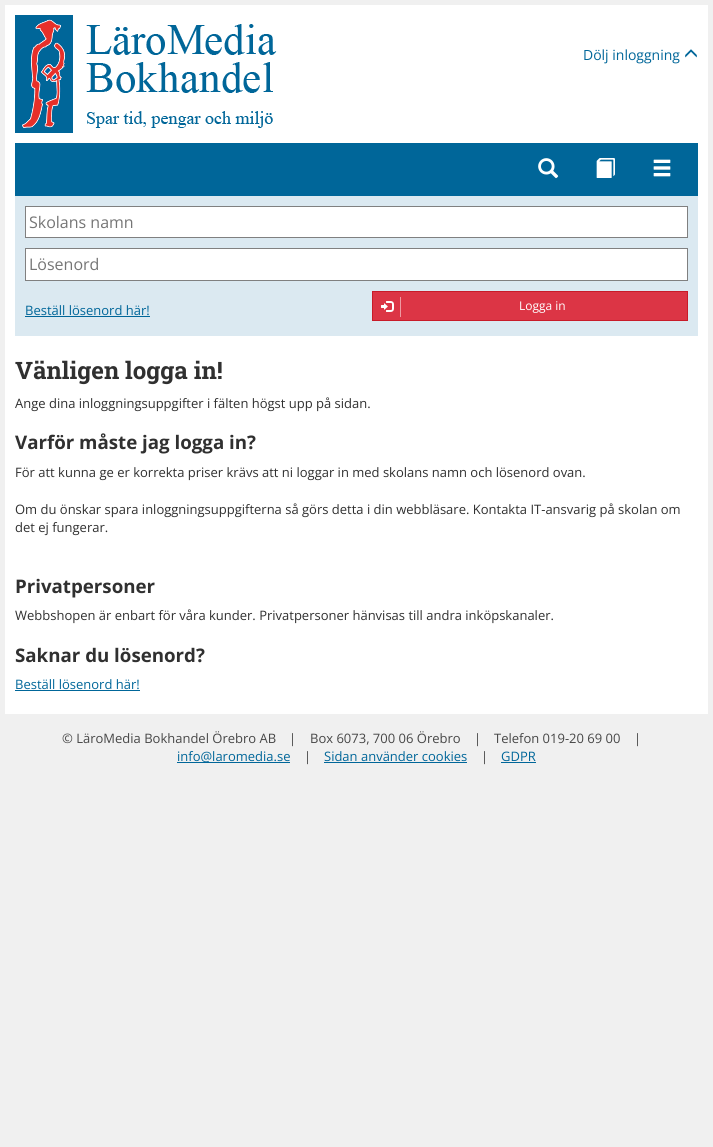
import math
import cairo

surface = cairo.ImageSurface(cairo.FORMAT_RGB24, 713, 1147)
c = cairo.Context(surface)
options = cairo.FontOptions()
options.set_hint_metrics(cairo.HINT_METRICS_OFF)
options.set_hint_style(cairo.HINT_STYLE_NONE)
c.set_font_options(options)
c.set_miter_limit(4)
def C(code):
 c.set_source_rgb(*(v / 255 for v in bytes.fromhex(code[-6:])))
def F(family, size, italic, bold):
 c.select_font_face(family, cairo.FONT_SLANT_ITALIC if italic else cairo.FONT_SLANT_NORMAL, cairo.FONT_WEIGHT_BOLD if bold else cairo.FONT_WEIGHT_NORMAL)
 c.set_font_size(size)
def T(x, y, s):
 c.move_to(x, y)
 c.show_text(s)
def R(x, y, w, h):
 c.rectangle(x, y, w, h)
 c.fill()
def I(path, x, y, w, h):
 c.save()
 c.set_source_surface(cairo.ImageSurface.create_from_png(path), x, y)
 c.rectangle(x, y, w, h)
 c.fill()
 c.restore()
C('f0f0f0')
c.paint()
C('ffffff')
R(5,5,703,709)
I('1.png',15,15,262,118)
F('Open Sans',14,0,0)
C('006699')
T(583,60,'Dölj inloggning')
I('2.png',685,49,12,9)
R(15,143,683,53)
I('3.png',538,158,21,21)
I('4.png',596,158,19,20)
I('5.png',653,159,18,18)
C('dbe9f1')
R(15,196,683,140)
C('ffffff')
c.rectangle(25.5,206.5,662,31)
c.fill_preserve()
C('808080')
c.set_line_width(1)
c.stroke()
F('Open Sans',16,0,0)
C('757575')
T(29,228,'Skolans namn')
C('ffffff')
c.rectangle(25.5,248.5,662,32)
c.fill_preserve()
C('808080')
c.stroke()
C('757575')
T(29,270,'Lösenord')
F('Open Sans',13,0,0)
C('006699')
T(25,315,'Beställ lösenord här!')
R(25,316,125,1)
C('dc3545')
c.rectangle(372.5,291.5,315,29)
c.fill_preserve()
C('c81b29')
c.stroke()
C('ee9aa2')
R(400,297,1,20)
I('6.png',381,301,13,11)
F('Open Sans',12,0,0)
C('ffffff')
T(519,310,'Logga in')
F('Roboto Slab',24,0,1)
C('303030')
T(15,379,'Vänligen logga in!')
F('Open Sans',13,0,0)
T(15,408,'Ange dina inloggningsuppgifter i fälten högst upp på sidan.')
F('Open Sans',18.7,0,1)
T(15,449,'Varför måste jag logga in?')
F('Open Sans',13,0,0)
T(15,477,'För att kunna ge er korrekta priser krävs att ni loggar in med skolans namn och lösenord ovan.')
T(15,514,'Om du önskar spara inloggningsuppgifterna så görs detta i din webbläsare. Kontakta IT-ansvarig på skolan om')
T(15,532,'det ej fungerar.')
F('Open Sans',18.7,0,1)
T(15,593,'Privatpersoner')
F('Open Sans',13,0,0)
T(15,620,'Webbshopen är enbart för våra kunder. Privatpersoner hänvisas till andra inköpskanaler.')
F('Open Sans',18.7,0,1)
T(15,662,'Saknar du lösenord?')
F('Open Sans',13,0,0)
C('006699')
T(15,689,'Beställ lösenord här!')
R(15,690,125,1)
C('474747')
T(62,743,'© LäroMedia Bokhandel Örebro AB')
T(289,743,'|')
T(310,743,'Box 6073, 700 06 Örebro')
T(474,743,'|')
T(494,743,'Telefon 019-20 69 00')
T(634,743,'|')
C('006699')
R(177,762,113,1)
T(177,761,'info@laromedia.se')
C('474747')
T(304,761,'|')
C('006699')
T(324,761,'Sidan använder cookies')
R(324,762,143,1)
C('474747')
T(481,761,'|')
C('006699')
T(501,761,'GDPR')
R(501,762,35,1)
surface.write_to_png('o.png')
